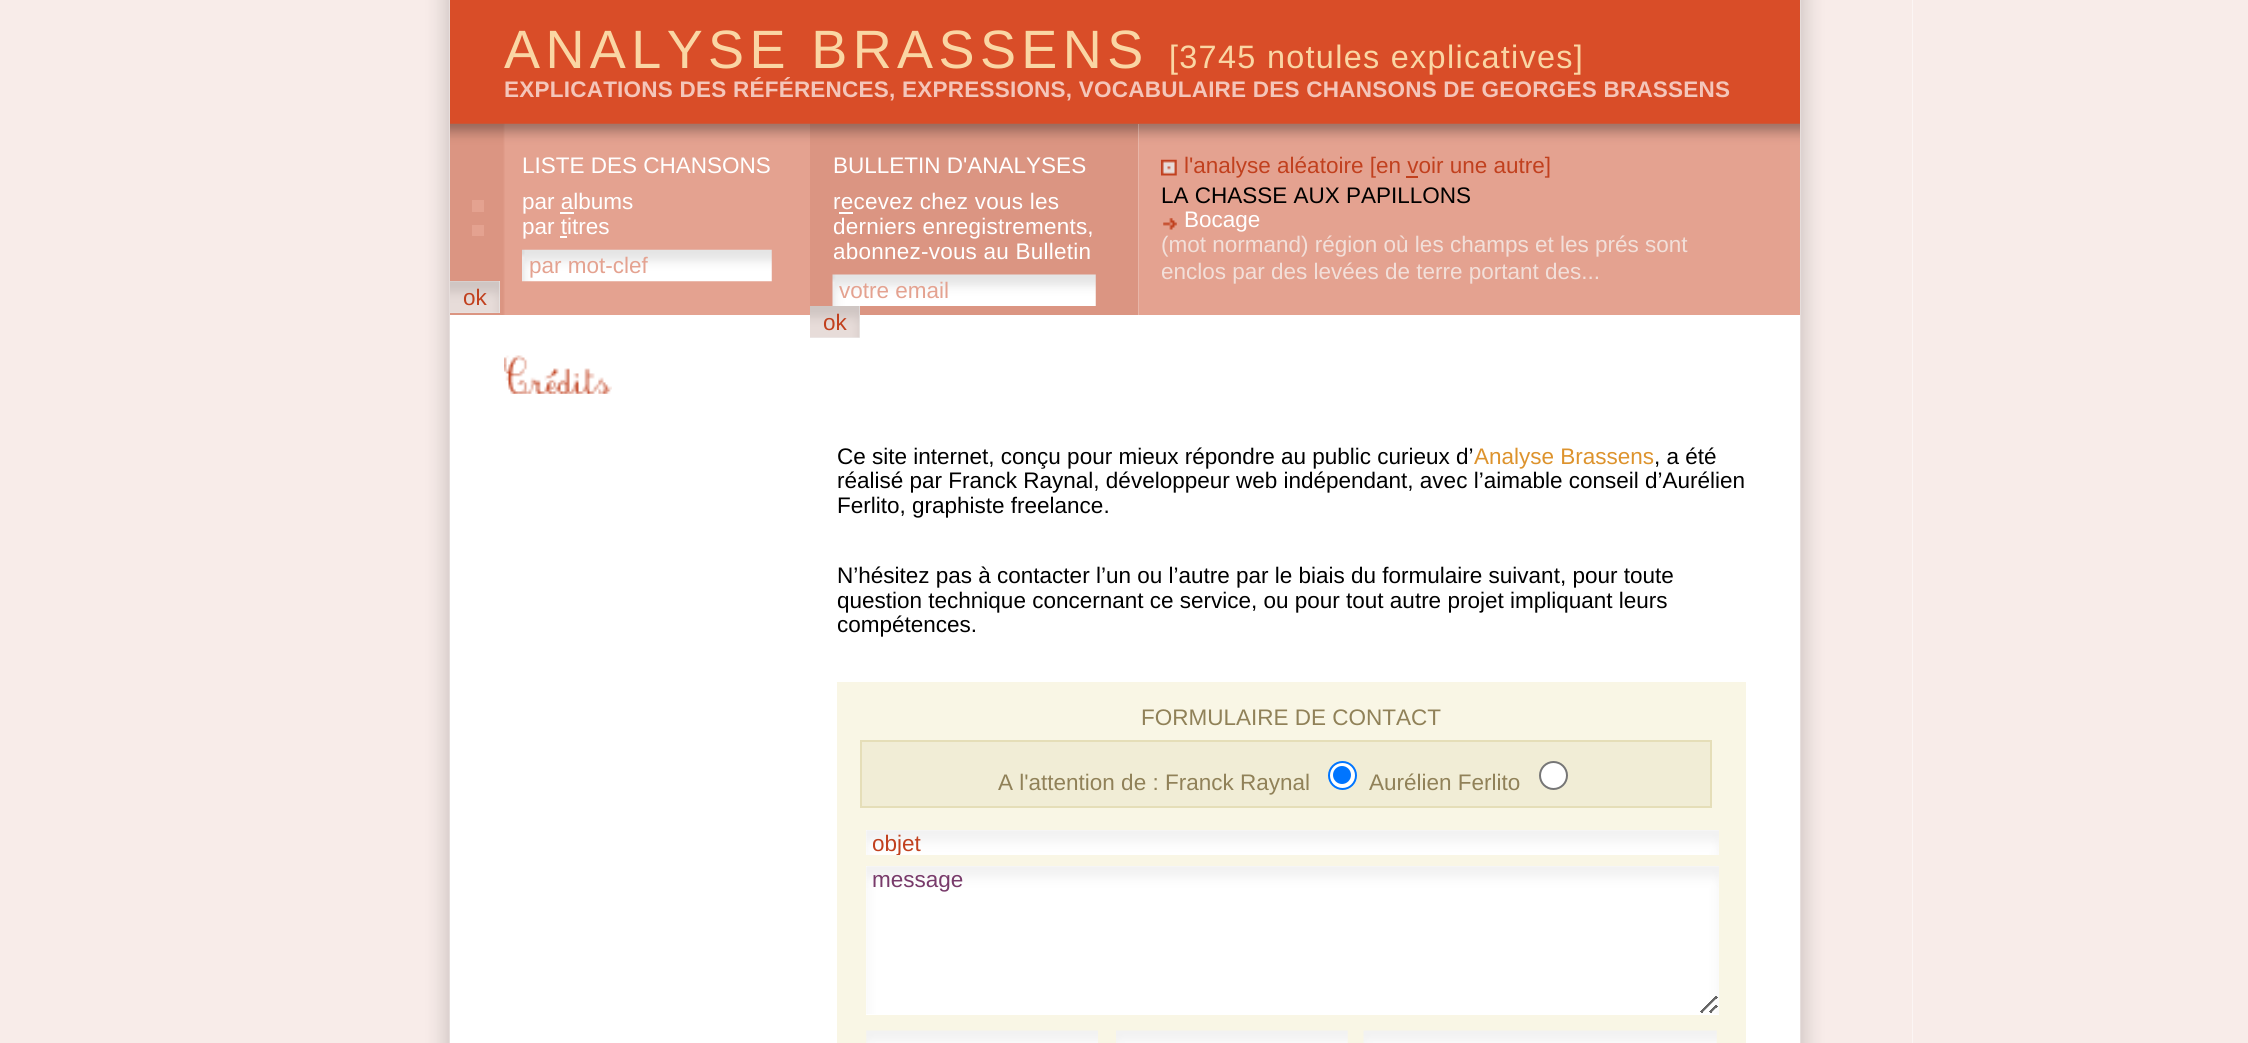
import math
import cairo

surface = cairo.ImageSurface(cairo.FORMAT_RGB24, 2248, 1043)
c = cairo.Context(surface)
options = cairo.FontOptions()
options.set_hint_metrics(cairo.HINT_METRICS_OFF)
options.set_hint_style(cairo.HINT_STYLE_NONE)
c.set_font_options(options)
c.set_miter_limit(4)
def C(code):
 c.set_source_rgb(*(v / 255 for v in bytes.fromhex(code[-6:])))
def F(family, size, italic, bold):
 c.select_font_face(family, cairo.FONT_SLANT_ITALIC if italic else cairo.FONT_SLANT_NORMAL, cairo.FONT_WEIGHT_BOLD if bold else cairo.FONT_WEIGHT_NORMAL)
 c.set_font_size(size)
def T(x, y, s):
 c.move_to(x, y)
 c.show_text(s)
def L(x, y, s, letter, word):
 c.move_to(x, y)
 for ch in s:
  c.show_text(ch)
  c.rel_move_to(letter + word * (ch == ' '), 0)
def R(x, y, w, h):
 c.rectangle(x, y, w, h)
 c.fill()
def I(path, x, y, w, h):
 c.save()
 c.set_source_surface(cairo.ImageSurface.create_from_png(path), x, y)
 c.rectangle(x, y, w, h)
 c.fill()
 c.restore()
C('f8ece9')
c.paint()
C('ffffff')
R(1912,0,1,1043)
I('1.png',338,0,1575,1043)
R(450,124,1350,919)
C('d94d28')
R(450,0,1350,124)
F('Liberation Sans',54,0,0)
C('fad6a4')
L(504,68,'ANALYSE BRASSENS',5.4,0)
F('Liberation Sans',32.4,0,0)
L(1169,68,'[3745 notules explicatives]',1.3,0)
F('Liberation Sans',22.5,0,1)
C('f4c6ba')
L(504,97,'EXPLICATIONS DES RÉFÉRENCES, EXPRESSIONS, VOCABULAIRE DES CHANSONS DE GEORGES BRASSENS',.23,0)
I('2.png',450,123,360,192)
F('Liberation Sans',22.5,0,0)
C('ffffff')
T(522,173,'LISTE DES CHANSONS')
T(522,209,'par albums')
C('e4a290')
R(472,200,12,12)
C('ffffff')
R(560,212,14,2)
T(522,234,'par titres')
C('e4a290')
R(472,225,12,11)
C('ffffff')
R(560,236,7,2)
I('3.png',522,249,250,33)
C('e4a290')
T(529,273,'par mot-clef')
C('efefef')
R(450,281,50,32)
I('4.png',450,281,50,32)
C('c1401e')
T(463,305,'ok')
I('5.png',810,123,329,192)
C('ffffff')
T(833,173,'BULLETIN D\'ANALYSES')
L(833,209,'recevez chez vous les',.23,0)
R(839,212,14,2)
L(833,234,'derniers enregistrements,',.23,0)
L(833,259,'abonnez-vous au Bulletin',.23,0)
I('6.png',832,274,264,32)
C('e4a290')
T(839,298,'votre email')
C('efefef')
R(810,306,50,32)
I('7.png',810,306,50,32)
C('c1401e')
T(823,330,'ok')
I('8.png',1138,123,662,192)
I('9.png',1161,159,16,17)
T(1184,173,'l\'analyse aléatoire [en voir une autre]')
R(1406,176,12,2)
C('000000')
T(1161,203,'LA CHASSE AUX PAPILLONS')
I('10.png',1163,218,14,12)
C('ffffff')
T(1184,227,'Bocage')
C('f2dfd9')
T(1161,252,'(mot normand) région où les champs et les prés sont')
T(1161,279,'enclos par des levées de terre portant des...')
I('11.png',504,355,108,39)
C('000000')
T(837,464,'Ce site internet, conçu pour mieux répondre au public curieux d’')
C('dd932d')
T(1474,464,'Analyse Brassens')
C('000000')
T(1654,464,', a été')
T(837,488,'réalisé par Franck Raynal, développeur web indépendant, avec l’aimable conseil d’Aurélien')
T(837,513,'Ferlito, graphiste freelance.')
T(837,583,'N’hésitez pas à contacter l’un ou l’autre par le biais du formulaire suivant, pour toute')
T(837,608,'question technique concernant ce service, ou pour tout autre projet impliquant leurs')
T(837,632,'compétences.')
C('f9f6e5')
R(837,682,909,361)
C('908158')
T(1141,725,'FORMULAIRE DE CONTACT')
C('f1edd6')
c.rectangle(861,741,850,66)
c.fill_preserve()
C('e5deb8')
c.stroke()
C('908158')
T(998,790,'A l\'attention de : Franck Raynal')
C('ffffff')
c.new_path()
c.arc(1342.5,775.5,13.5,0,2 * math.pi)
c.fill_preserve()
C('0075ff')
c.stroke()
c.arc(1342,775,9,0,2 * math.pi)
c.fill()
C('908158')
T(1369,790,'Aurélien Ferlito')
C('ffffff')
c.new_path()
c.arc(1553.5,775.5,13.5,0,2 * math.pi)
c.fill_preserve()
C('767676')
c.stroke()
C('ffffff')
R(866,830,853,25)
I('12.png',866,830,853,25)
c.save()
c.rectangle(873,830,846,25)
c.clip()
C('c1401e')
T(872,851,'objet')
c.restore()
R(866,866,853,149)
I('13.png',866,866,853,148)
C('783a6a')
T(872,887,'message')
I('14.png',866,1030,232,13)
I('15.png',1116,1030,232,13)
I('16.png',1363,1030,354,13)
surface.write_to_png('o.png')
